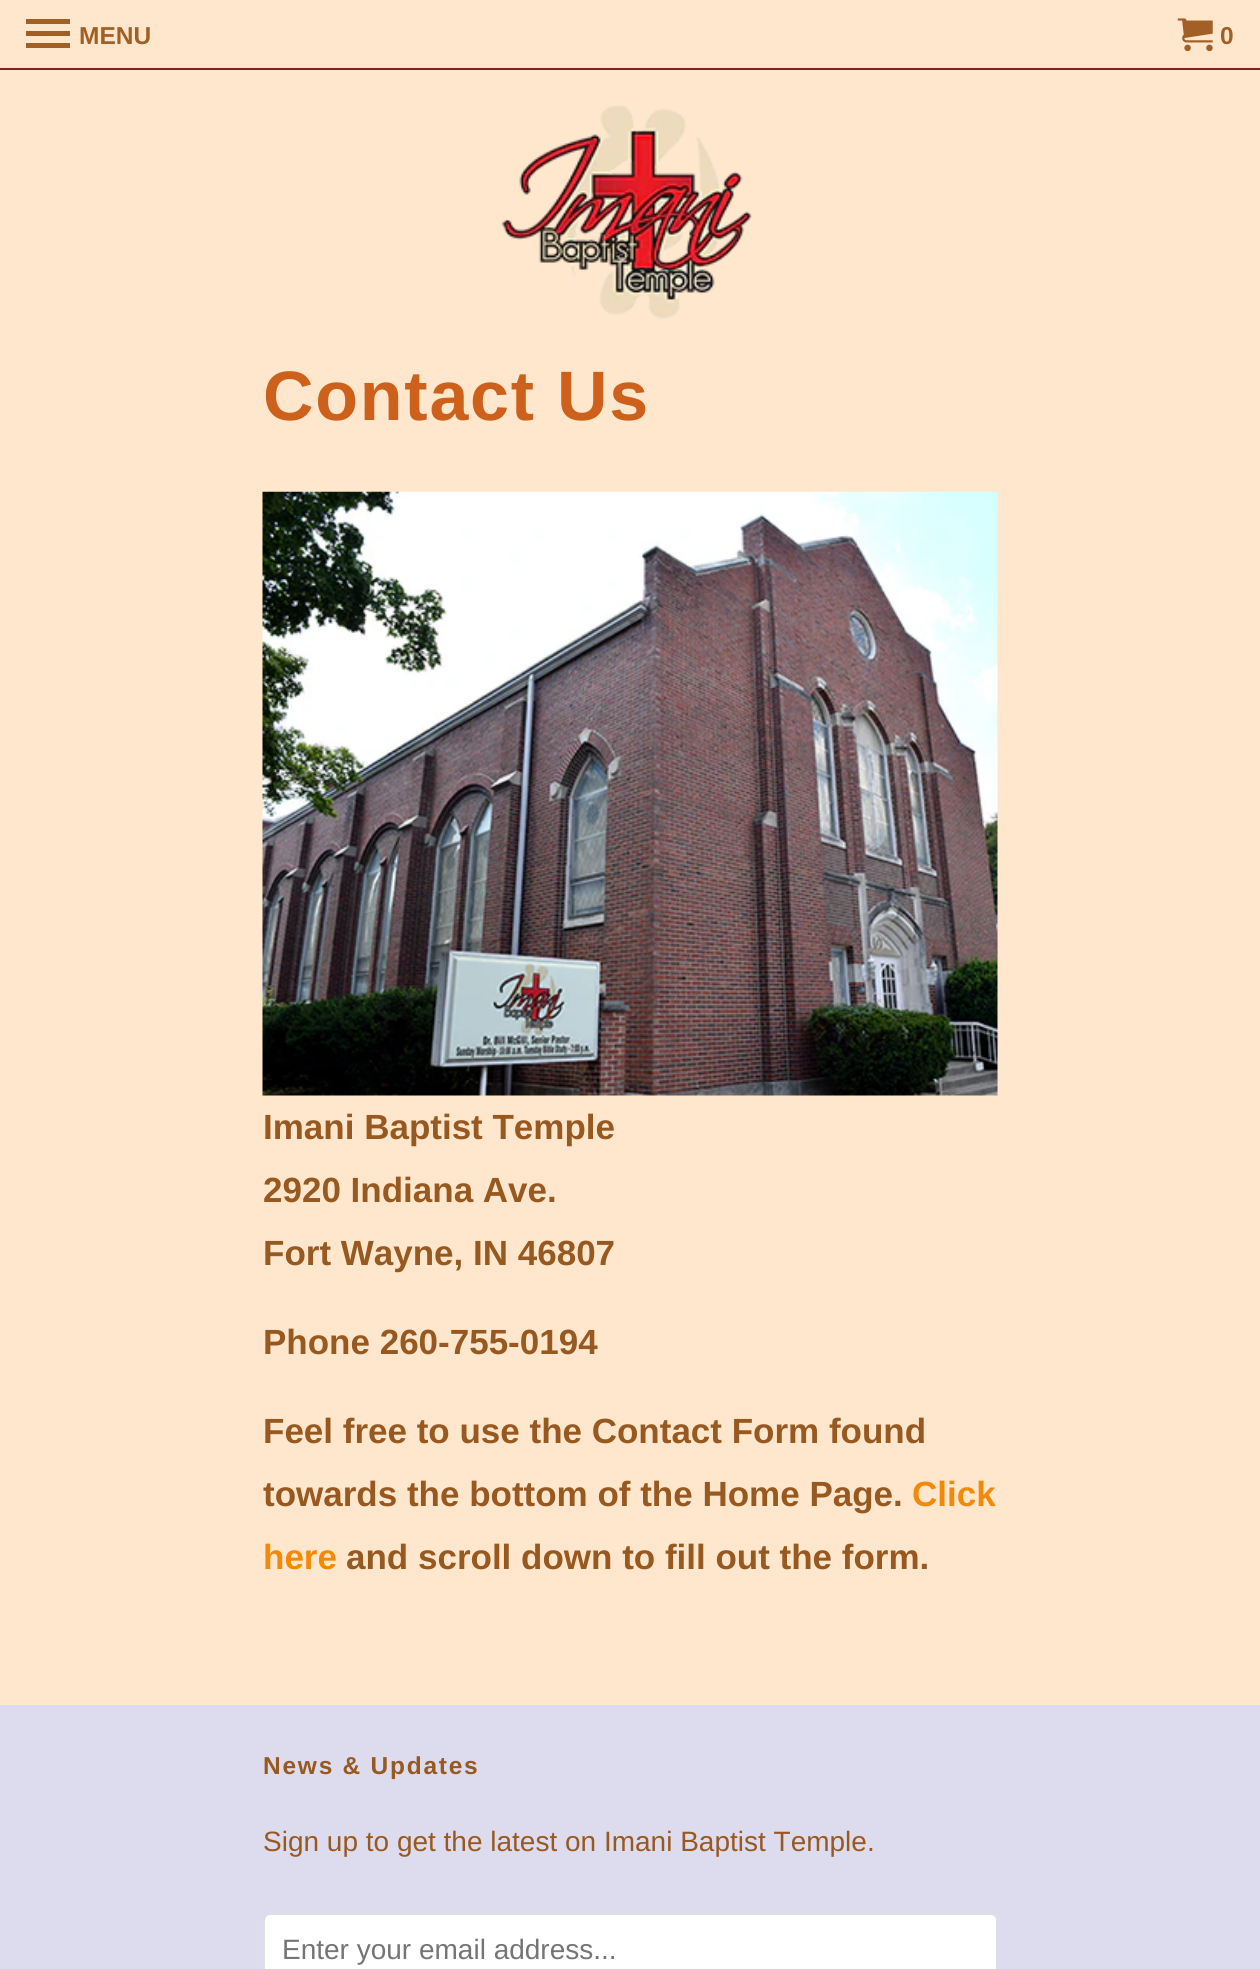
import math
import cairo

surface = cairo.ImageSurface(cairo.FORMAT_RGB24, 1260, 1969)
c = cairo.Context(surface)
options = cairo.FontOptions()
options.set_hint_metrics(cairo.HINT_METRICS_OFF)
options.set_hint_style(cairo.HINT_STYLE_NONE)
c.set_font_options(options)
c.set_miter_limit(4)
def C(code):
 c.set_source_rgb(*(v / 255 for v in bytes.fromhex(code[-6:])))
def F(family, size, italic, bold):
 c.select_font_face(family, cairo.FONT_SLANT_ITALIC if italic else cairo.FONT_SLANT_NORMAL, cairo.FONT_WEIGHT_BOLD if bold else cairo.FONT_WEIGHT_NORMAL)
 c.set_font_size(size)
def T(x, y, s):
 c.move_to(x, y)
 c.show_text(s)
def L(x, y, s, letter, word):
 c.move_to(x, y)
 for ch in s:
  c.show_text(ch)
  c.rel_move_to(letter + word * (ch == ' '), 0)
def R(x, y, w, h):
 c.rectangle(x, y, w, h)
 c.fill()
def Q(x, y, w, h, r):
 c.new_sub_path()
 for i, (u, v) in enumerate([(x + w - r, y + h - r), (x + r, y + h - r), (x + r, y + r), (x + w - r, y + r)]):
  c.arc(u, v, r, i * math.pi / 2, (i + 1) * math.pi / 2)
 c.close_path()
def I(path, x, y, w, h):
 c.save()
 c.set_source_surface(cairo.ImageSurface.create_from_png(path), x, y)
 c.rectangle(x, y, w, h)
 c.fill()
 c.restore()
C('ffe7ce')
c.paint()
C('891c29')
R(0,68,1260,2)
C('a26025')
c.new_path()
c.move_to(26,48)
c.line_to(70,48)
c.line_to(70,43)
c.line_to(26,43)
c.close_path()
c.move_to(26,36)
c.line_to(70,36)
c.line_to(70,31)
c.line_to(26,31)
c.close_path()
c.move_to(26,19)
c.line_to(26,24)
c.line_to(70,24)
c.line_to(70,19)
c.close_path()
c.fill()
F('Liberation Sans',24.5,0,1)
T(79,44,'MENU')
I('1.png',1177,18,36,34)
T(1220,44,'0')
I('2.png',501,105,251,214)
F('Liberation Sans',70,0,1)
C('cd611c')
L(263,420,'Contact Us',1.75,0)
I('3.png',262,491,736,605)
F('Liberation Sans',35,0,1)
C('985921')
T(263,1139,'Imani Baptist Temple')
T(263,1202,'2920 Indiana Ave.')
T(263,1265,'Fort Wayne, IN 46807')
T(263,1354,'Phone 260-755-0194')
T(263,1443,'Feel free to use the Contact Form found')
T(263,1506,'towards the bottom of the Home Page.')
C('f38909')
T(912,1506,'Click')
T(263,1569,'here')
C('985921')
T(346,1569,'and scroll down to fill out the form.')
C('dcdcee')
R(0,1705,1260,264)
F('Liberation Sans',24.5,0,1)
C('985921')
L(263,1774,'News & Updates',1.75,0)
F('Liberation Sans',28,0,0)
T(263,1851,'Sign up to get the latest on Imani Baptist Temple.')
C('ffffff')
Q(264,1914,733,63,6)
c.fill_preserve()
C('dce0e0')
c.stroke()
C('757575')
T(282,1959,'Enter your email address...')
surface.write_to_png('o.png')
